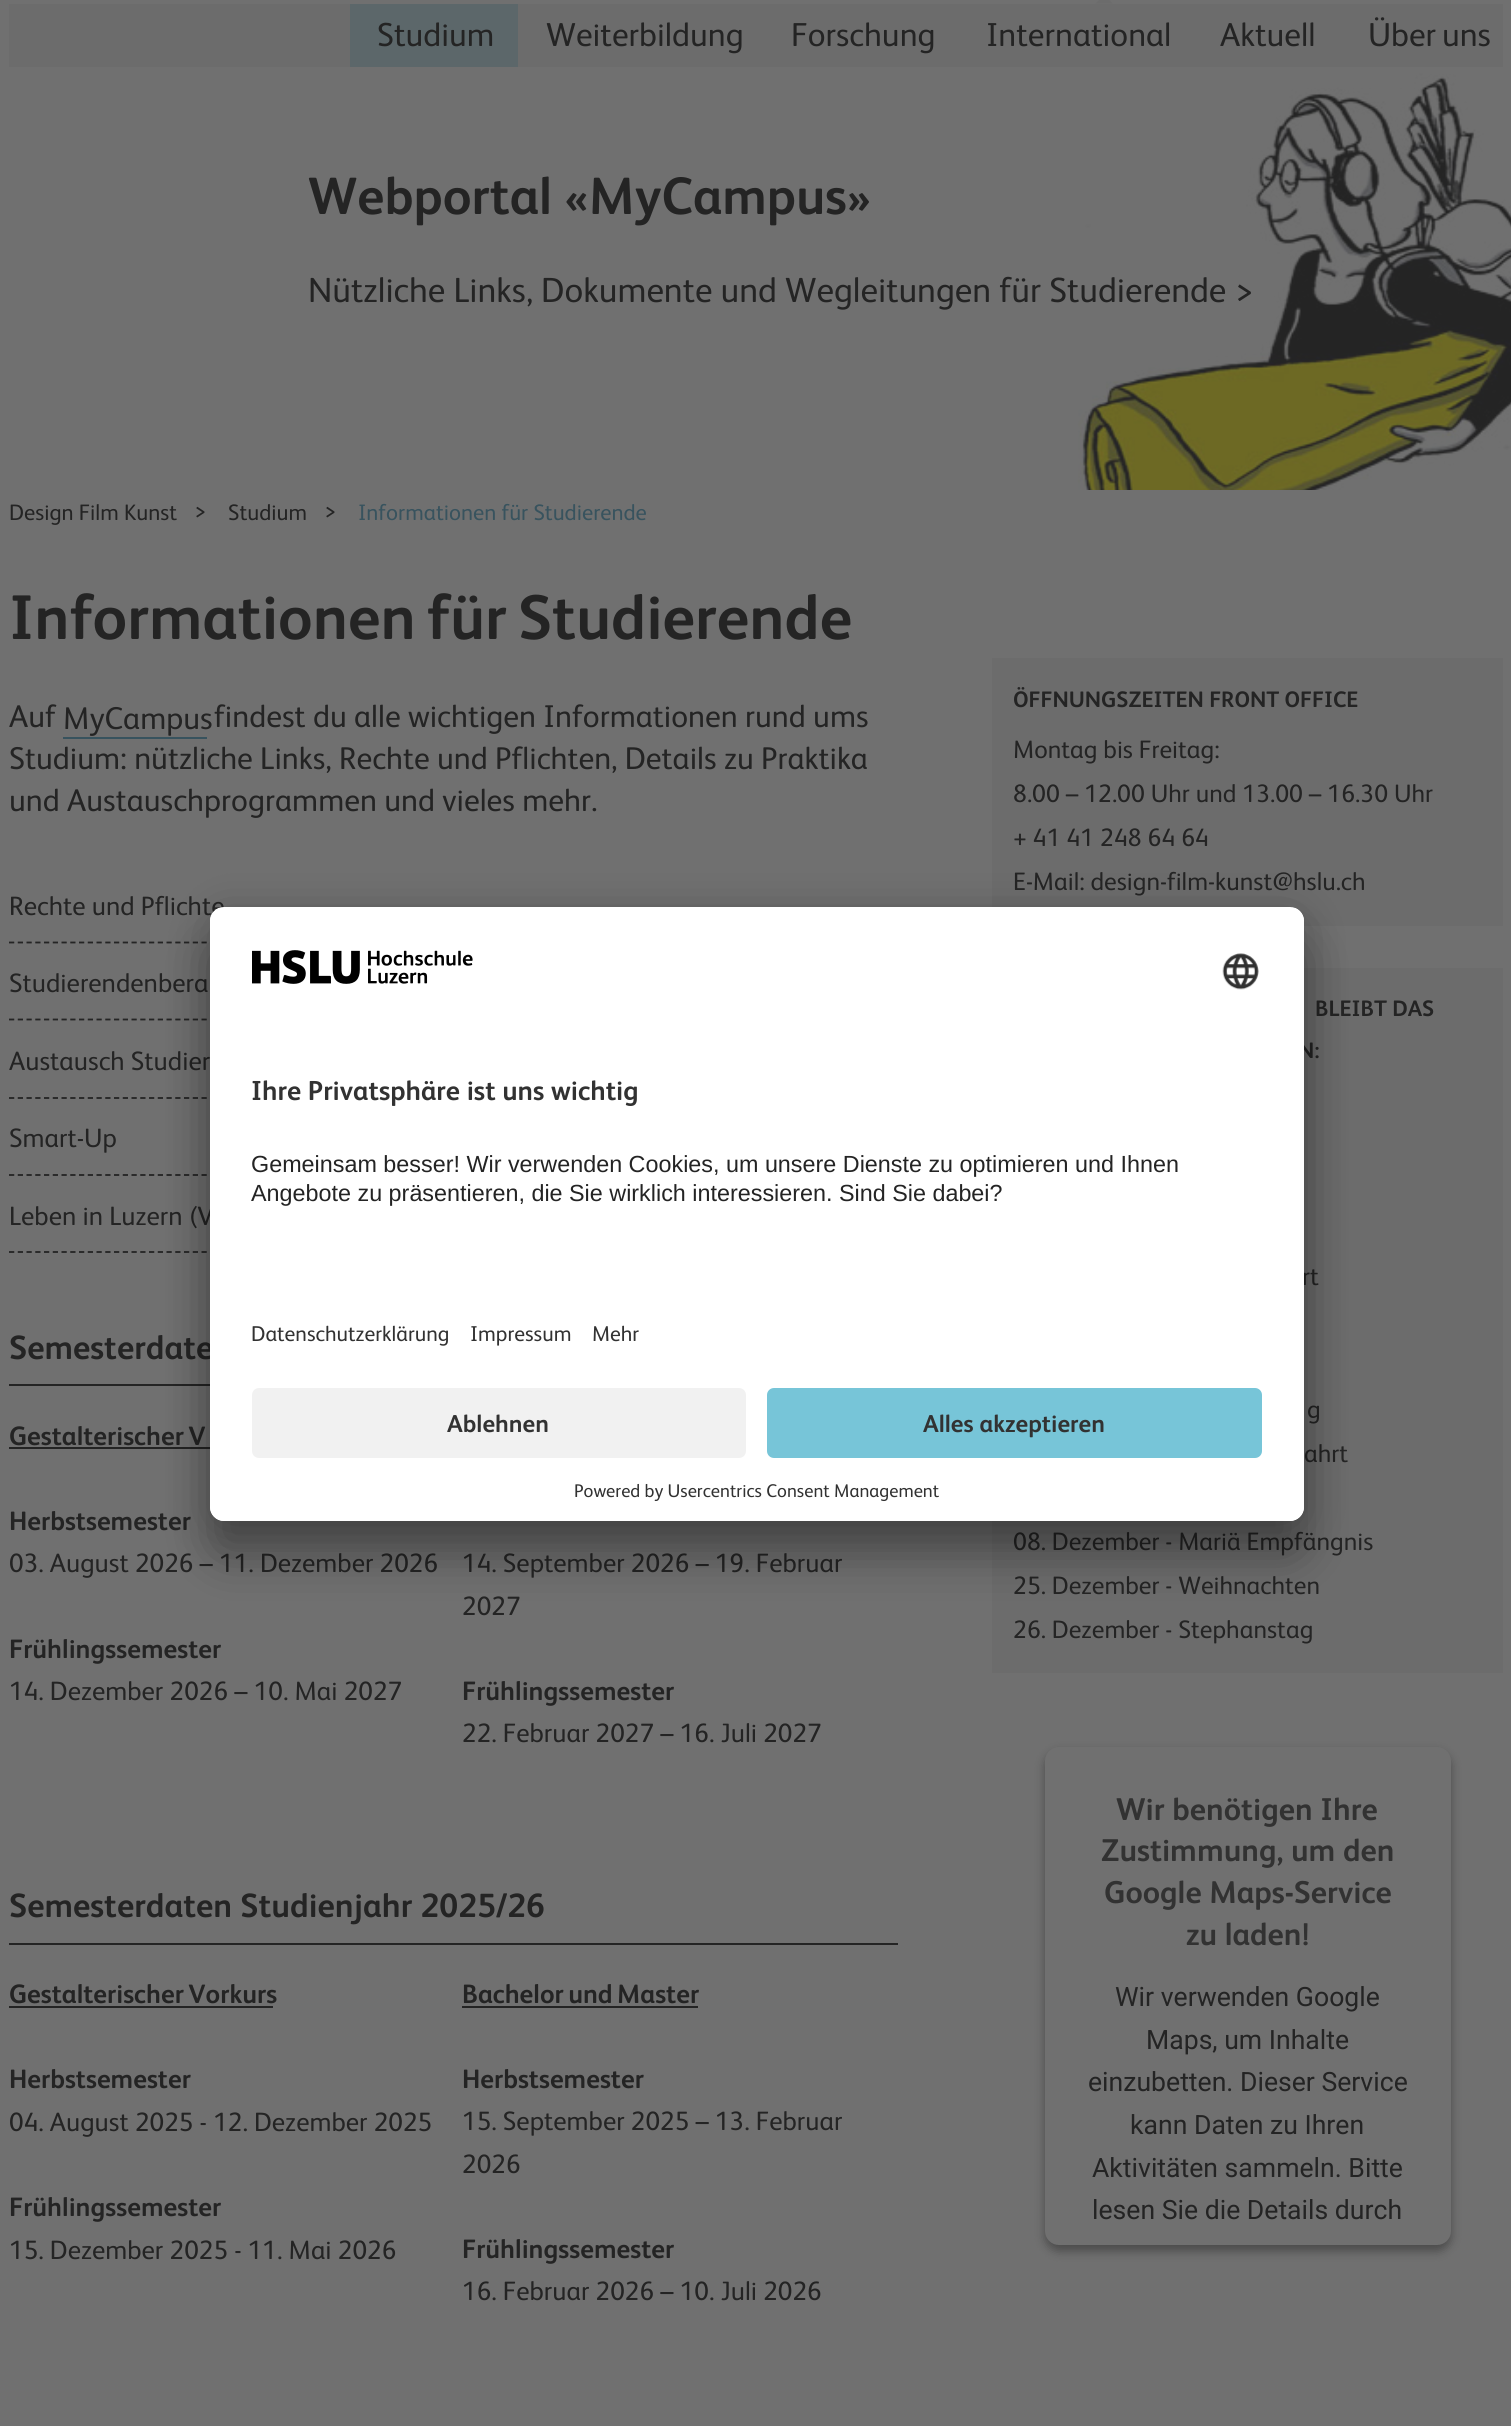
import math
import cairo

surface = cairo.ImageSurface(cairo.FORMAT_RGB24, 1511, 2426)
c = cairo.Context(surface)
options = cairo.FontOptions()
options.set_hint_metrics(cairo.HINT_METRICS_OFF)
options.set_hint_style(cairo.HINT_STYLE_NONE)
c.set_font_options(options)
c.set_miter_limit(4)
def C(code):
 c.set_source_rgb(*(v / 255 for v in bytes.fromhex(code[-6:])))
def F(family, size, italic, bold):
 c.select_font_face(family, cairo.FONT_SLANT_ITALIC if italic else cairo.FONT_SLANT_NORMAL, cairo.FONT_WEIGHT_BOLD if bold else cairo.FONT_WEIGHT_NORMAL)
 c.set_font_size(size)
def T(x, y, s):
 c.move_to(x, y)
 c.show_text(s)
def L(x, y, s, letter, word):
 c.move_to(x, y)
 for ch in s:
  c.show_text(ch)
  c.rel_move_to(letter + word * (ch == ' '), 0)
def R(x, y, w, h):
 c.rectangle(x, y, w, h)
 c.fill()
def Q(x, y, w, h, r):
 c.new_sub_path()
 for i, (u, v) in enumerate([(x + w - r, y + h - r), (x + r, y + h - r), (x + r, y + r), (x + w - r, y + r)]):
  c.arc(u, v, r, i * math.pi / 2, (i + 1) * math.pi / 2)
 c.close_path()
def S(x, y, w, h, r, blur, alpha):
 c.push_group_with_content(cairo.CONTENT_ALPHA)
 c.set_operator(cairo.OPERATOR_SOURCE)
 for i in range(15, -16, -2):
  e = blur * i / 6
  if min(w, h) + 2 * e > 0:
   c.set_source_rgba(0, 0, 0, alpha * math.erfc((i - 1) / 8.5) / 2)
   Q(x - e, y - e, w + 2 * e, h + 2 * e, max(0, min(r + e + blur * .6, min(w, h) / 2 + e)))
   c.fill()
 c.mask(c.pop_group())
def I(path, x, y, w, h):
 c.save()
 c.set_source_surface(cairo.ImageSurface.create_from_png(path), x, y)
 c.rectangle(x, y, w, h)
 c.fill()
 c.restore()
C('707070')
c.paint()
C('6c6c6c')
c.new_path()
c.move_to(1113,3.5)
c.line_to(1095.5,3.5)
c.line_to(1104,-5)
c.close_path()
c.fill()
I('1.png',1024,46,487,444)
R(9,4,1494,63)
C('5c676a')
R(350,4,168,63)
F('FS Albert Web',33.25,0,0)
C('242424')
T(377,46,'Studium')
T(546,46,'Weiterbildung')
T(791,46,'Forschung')
T(986,46,'International')
T(1220,46,'Aktuell')
L(1368,46,'Über uns',0,-2)
F('FS Albert Web',52.5,0,1)
T(308,214,'Webportal «MyCampus»')
F('FS Albert Web',35,0,0)
T(308,302,'Nützliche Links, Dokumente und Wegleitungen für Studierende >')
F('FS Albert Web',22.4,0,0)
T(9,520,'Design Film Kunst')
T(194,518,'>')
T(228,520,'Studium')
T(324,518,'>')
C('38535e')
T(358,520,'Informationen für Studierende')
F('FS Albert Web',63,0,1)
C('242424')
L(9,639,'Informationen für Studierende',0,-4)
F('FS Albert Web',31.5,0,0)
T(9,727,'Auf')
T(63,729,'MyCampus')
C('38535e')
R(63,737,144,2)
C('242424')
T(214,727,'findest du alle wichtigen Informationen rund ums')
T(9,769,'Studium: nützliche Links, Rechte und Pflichten, Details zu Praktika')
T(9,811,'und Austauschprogrammen und vieles mehr.')
F('FS Albert Web',26.6,0,0)
T(9,915,'Rechte und Pflichte')
c.new_path()
c.move_to(9,942.5)
c.line_to(898,942.5)
c.set_line_width(1.8)
c.set_dash([5.25,3.5])
c.stroke()
T(9,992,'Studierendenbera')
c.new_path()
c.move_to(9,1019.5)
c.line_to(898,1019.5)
c.stroke()
T(9,1070,'Austausch Studier')
c.new_path()
c.move_to(9,1098)
c.line_to(898,1098)
c.stroke()
T(9,1147,'Smart-Up')
c.new_path()
c.move_to(9,1175)
c.line_to(898,1175)
c.stroke()
T(9,1225,'Leben in Luzern (V')
c.new_path()
c.move_to(9,1252)
c.line_to(898,1252)
c.stroke()
F('FS Albert Web',33.6,0,1)
T(9,1359,'Semesterdate')
R(9,1384,201,2)
F('FS Albert Web',26.6,0,1)
L(9,1445,'Gestalterischer V',0,-2)
R(9,1447,201,2)
T(9,1530,'Herbstsemester')
F('FS Albert Web',26.6,0,0)
T(9,1572,'03. August 2026 – 11. Dezember 2026')
F('FS Albert Web',26.6,0,1)
T(9,1658,'Frühlingssemester')
F('FS Albert Web',26.6,0,0)
T(9,1700,'14. Dezember 2026 – 10. Mai 2027')
T(462,1572,'14. September 2026 – 19. Februar')
T(462,1615,'2027')
F('FS Albert Web',26.6,0,1)
T(462,1700,'Frühlingssemester')
F('FS Albert Web',26.6,0,0)
T(462,1742,'22. Februar 2027 – 16. Juli 2027')
F('FS Albert Web',33.6,0,1)
T(9,1917,'Semesterdaten Studienjahr 2025/26')
R(9,1943,889,2)
F('FS Albert Web',26.6,0,1)
L(9,2003,'Gestalterischer Vorkurs',0,-2)
R(9,2006,264,2)
T(9,2088,'Herbstsemester')
F('FS Albert Web',26.6,0,0)
T(9,2131,'04. August 2025 - 12. Dezember 2025')
F('FS Albert Web',26.6,0,1)
T(9,2216,'Frühlingssemester')
F('FS Albert Web',26.6,0,0)
T(9,2259,'15. Dezember 2025 - 11. Mai 2026')
F('FS Albert Web',26.6,0,1)
L(462,2003,'Bachelor und Master',0,-2)
R(462,2006,236,2)
T(462,2088,'Herbstsemester')
F('FS Albert Web',26.6,0,0)
T(462,2130,'15. September 2025 – 13. Februar')
T(462,2173,'2026')
F('FS Albert Web',26.6,0,1)
T(462,2258,'Frühlingssemester')
F('FS Albert Web',26.6,0,0)
T(462,2300,'16. Februar 2026 – 10. Juli 2026')
C('6c6c6c')
R(992,658,511,268)
F('FS Albert Web',22.4,0,1)
C('242424')
T(1013,707,'ÖFFNUNGSZEITEN FRONT OFFICE')
F('FS Albert Web',25.25,0,0)
T(1013,758,'Montag bis Freitag:')
T(1013,802,'8.00 – 12.00 Uhr und 13.00 – 16.30 Uhr')
T(1013,846,'+ 41 41 248 64 64')
T(1013,890,'E-Mail: design-film-kunst@hslu.ch')
C('6c6c6c')
R(992,968,511,705)
F('FS Albert Web',22.4,0,1)
C('242424')
T(1315,1016,'BLEIBT DAS')
T(1298,1058,'N:')
F('FS Albert Web',25.25,0,0)
T(1302,1285,'rt')
T(1307,1418,'g')
T(1304,1462,'ahrt')
T(1013,1550,'08. Dezember - Mariä Empfängnis')
T(1013,1594,'25. Dezember - Weihnachten')
T(1013,1638,'26. Dezember - Stephanstag')
C('242424')
S(1045,1752,406,499,14,5,.5)
C('707070')
Q(1045,1747,406,498,14)
c.fill()
F('FS Albert Web',31.5,0,1)
C('323232')
T(1116,1820,'Wir benötigen Ihre')
T(1101,1861,'Zustimmung, um den')
T(1104,1903,'Google Maps-Service')
T(1186,1945,'zu laden!')
F('Roboto',26.6,0,0)
C('242424')
T(1115,2006,'Wir verwenden Google')
T(1146,2049,'Maps, um Inhalte')
T(1088,2091,'einzubetten. Dieser Service')
T(1130,2134,'kann Daten zu Ihren')
T(1092,2177,'Aktivitäten sammeln. Bitte')
T(1092,2219,'lesen Sie die Details durch')
C('000000')
S(210,942,1094,614,14,24.5,.3)
S(210,915,1094,615,14,23,.22)
C('ffffff')
Q(210,907,1094,614,14)
c.fill()
c.save()
Q(210,907,1094,614,14)
c.clip()
c.new_path()
c.move_to(224,907)
c.line_to(1290,907)
c.curve_to(1297.5,907,1304,913.5,1304,921)
c.line_to(1304,1374)
c.line_to(210,1374)
c.line_to(210,921)
c.curve_to(210,913.5,216.5,907,224,907)
c.close_path()
c.clip()
R(210,908,1094,466)
c.restore()
I('2.png',252,950,221,34)
I('3.png',1222,953,37,37)
F('FS Albert Web',27.5,0,1)
C('323232')
T(251,1100,'Ihre Privatsphäre ist uns wichtig')
F('Liberation Sans',23.35,0,0)
C('242424')
T(251,1172,'Gemeinsam besser! Wir verwenden Cookies, um unsere Dienste zu optimieren und Ihnen')
T(251,1201,'Angebote zu präsentieren, die Sie wirklich interessieren. Sind Sie dabei?')
F('FS Albert Web',21.5,0,0)
C('323232')
T(251,1341,'Datenschutzerklärung')
T(470,1341,'Impressum')
T(592,1341,'Mehr')
C('ffffff')
c.new_path()
c.move_to(210,1374)
c.line_to(1304,1374)
c.line_to(1304,1507)
c.curve_to(1304,1514.5,1297.5,1521,1290,1521)
c.line_to(224,1521)
c.curve_to(216.5,1521,210,1514.5,210,1507)
c.close_path()
c.fill()
C('f1f1f1')
Q(252,1388,494,70,7)
c.fill()
F('FS Albert Web',24.5,0,1)
C('323232')
T(447,1432,'Ablehnen')
C('77c5d8')
Q(767,1388,495,70,7)
c.fill()
C('323232')
T(923,1432,'Alles akzeptieren')
F('FS Albert Web',18.4,0,0)
T(574,1497,'Powered by Usercentrics Consent Management')
surface.write_to_png('o.png')
